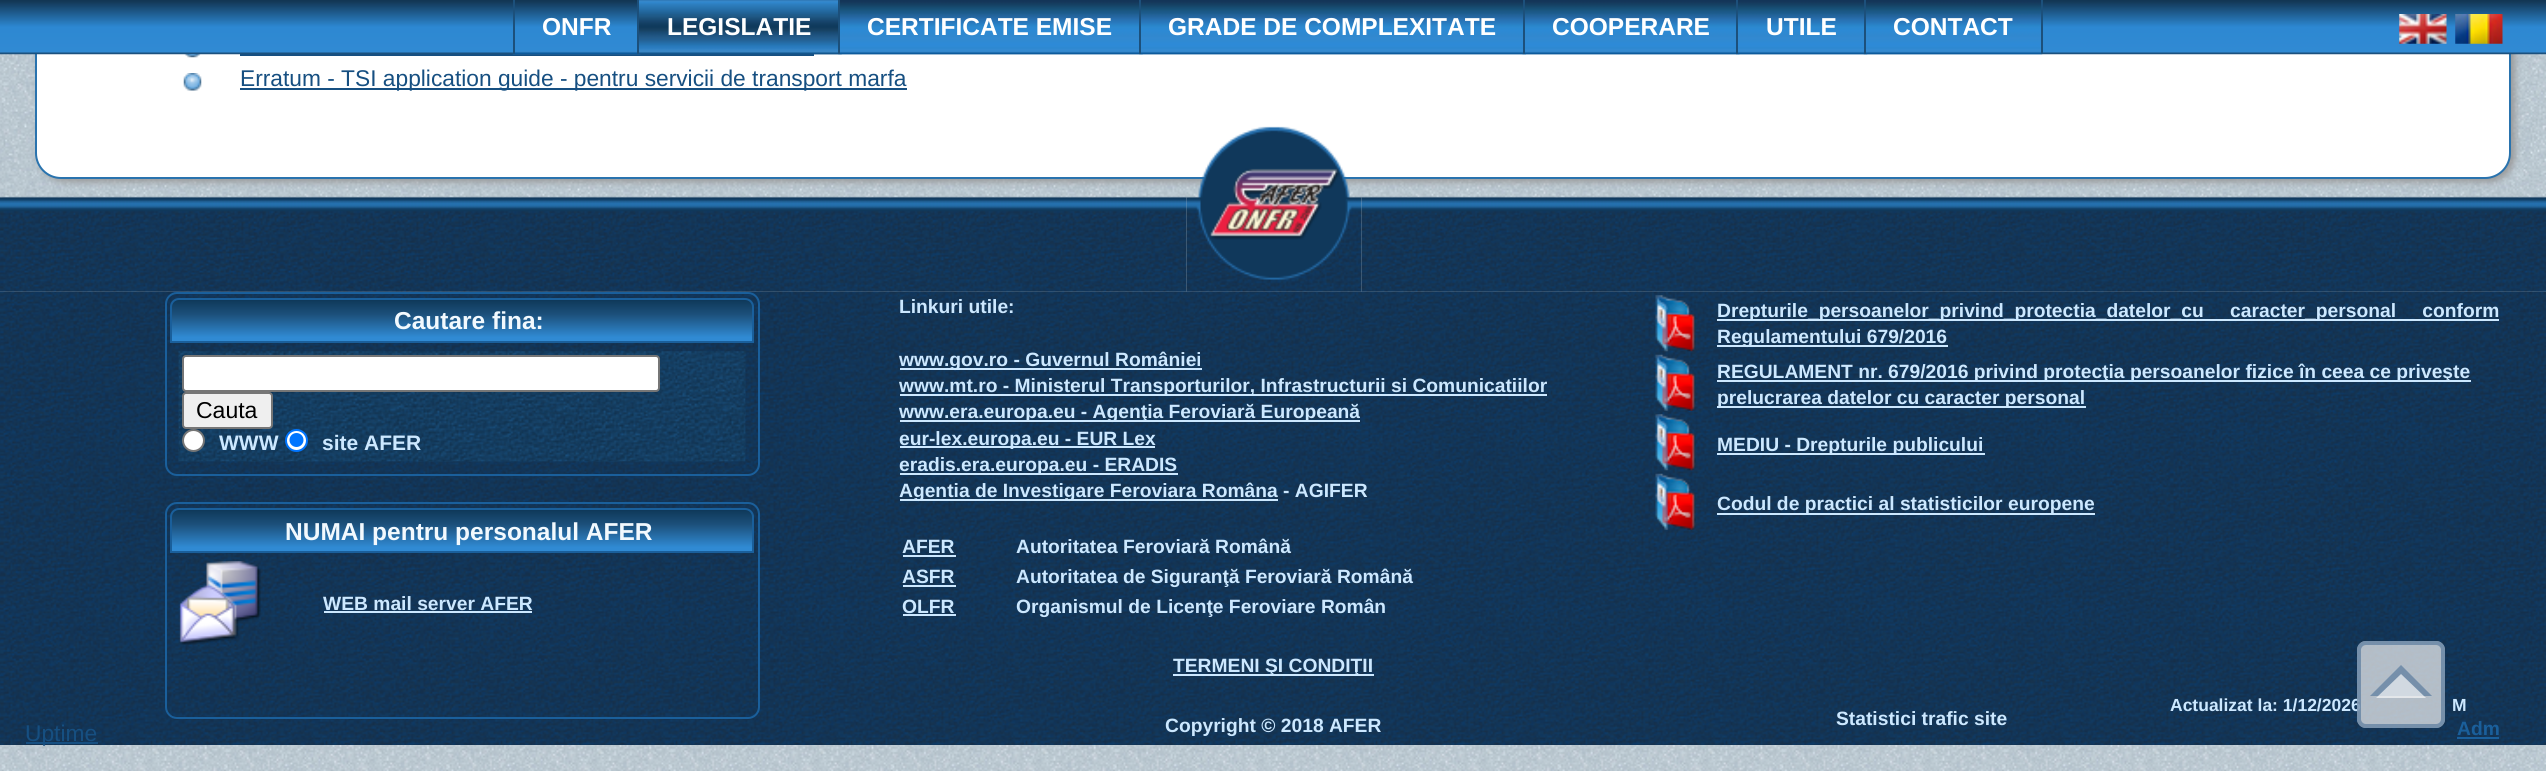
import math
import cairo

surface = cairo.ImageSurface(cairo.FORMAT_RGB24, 2546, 771)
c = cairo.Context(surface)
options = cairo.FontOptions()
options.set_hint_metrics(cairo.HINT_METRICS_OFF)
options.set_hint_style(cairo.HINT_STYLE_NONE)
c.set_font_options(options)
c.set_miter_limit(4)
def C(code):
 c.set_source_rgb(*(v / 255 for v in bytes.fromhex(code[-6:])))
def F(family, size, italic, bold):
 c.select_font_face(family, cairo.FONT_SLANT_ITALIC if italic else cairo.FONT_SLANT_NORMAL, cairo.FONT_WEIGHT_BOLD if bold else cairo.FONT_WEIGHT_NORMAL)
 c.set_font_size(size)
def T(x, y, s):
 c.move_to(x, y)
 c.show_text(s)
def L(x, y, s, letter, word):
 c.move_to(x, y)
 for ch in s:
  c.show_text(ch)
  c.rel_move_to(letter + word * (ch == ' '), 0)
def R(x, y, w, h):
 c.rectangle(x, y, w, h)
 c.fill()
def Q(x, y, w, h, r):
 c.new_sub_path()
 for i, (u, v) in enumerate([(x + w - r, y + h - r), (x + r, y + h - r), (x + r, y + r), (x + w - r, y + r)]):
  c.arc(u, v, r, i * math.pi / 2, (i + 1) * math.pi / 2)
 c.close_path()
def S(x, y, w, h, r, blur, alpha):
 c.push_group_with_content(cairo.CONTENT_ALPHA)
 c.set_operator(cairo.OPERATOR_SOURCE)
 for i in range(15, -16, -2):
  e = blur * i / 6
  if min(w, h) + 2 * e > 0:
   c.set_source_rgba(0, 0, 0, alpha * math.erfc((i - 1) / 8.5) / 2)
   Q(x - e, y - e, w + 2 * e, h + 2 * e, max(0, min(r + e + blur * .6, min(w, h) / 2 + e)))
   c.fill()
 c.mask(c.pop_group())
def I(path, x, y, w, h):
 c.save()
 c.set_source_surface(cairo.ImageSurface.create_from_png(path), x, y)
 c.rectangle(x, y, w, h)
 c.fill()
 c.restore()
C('ffffff')
c.paint()
I('1.png',0,54,2546,717)
C('999999')
S(39,-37,2476,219,26,3.5,1)
C('ffffff')
Q(36,-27,2474,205,25)
c.fill_preserve()
C('2973ae')
c.stroke()
I('12.png',184,54,17,4)
C('164f81')
R(240,54,574,2)
I('2.png',0,0,2546,55)
I('3.png',512,51,129,4)
C('1c507b')
R(513,0,2,54)
F('Liberation Sans',24.5,0,1)
C('ffffff')
T(542,35,'ONFR')
I('4.png',637,0,205,55)
C('1c507b')
R(637,0,2,54)
C('ffffff')
T(667,35,'LEGISLATIE')
I('5.png',838,0,305,55)
C('1c507b')
R(838,0,2,54)
C('ffffff')
T(867,35,'CERTIFICATE EMISE')
I('6.png',1139,0,387,55)
C('1c507b')
R(1139,0,2,54)
C('ffffff')
T(1168,35,'GRADE DE COMPLEXITATE')
I('7.png',1522,0,218,55)
C('1c507b')
R(1523,0,2,54)
C('ffffff')
T(1552,35,'COOPERARE')
I('8.png',1736,0,132,55)
C('1c507b')
R(1736,0,2,54)
C('ffffff')
T(1766,35,'UTILE')
I('9.png',1863,0,180,55)
C('1c507b')
R(2041,0,2,54)
R(1864,0,2,54)
C('ffffff')
T(1893,35,'CONTACT')
I('10.png',2399,14,48,30)
I('11.png',2455,14,48,30)
I('13.png',183,73,19,18)
C('164f81')
R(240,88,667,2)
F('Liberation Sans',22.75,0,0)
T(240,86,'Erratum - TSI application guide - pentru servicii de transport marfa')
I('14.png',0,196,1187,96)
I('15.png',1186,126,176,166)
I('16.png',1361,196,1185,96)
I('17.png',0,291,2546,454)
Q(166,293,593,182,11)
C('1a5f9b')
c.stroke()
c.save()
c.new_path()
c.move_to(179,298)
c.line_to(745,298)
c.curve_to(750,298,754,302,754,307)
c.line_to(754,343)
c.line_to(170,343)
c.line_to(170,307)
c.curve_to(170,302,174,298,179,298)
c.close_path()
c.clip()
gradient = cairo.LinearGradient(462,299,462,341)
gradient.add_color_stop_rgba(0,0.055,0.216,0.341,1)
gradient.add_color_stop_rgba(.37,0.11,0.314,0.482,1)
gradient.add_color_stop_rgba(.91,0.188,0.541,0.827,1)
gradient.add_color_stop_rgba(1,0.188,0.541,0.827,1)
c.set_source(gradient)
R(170,299,584,42)
c.restore()
c.new_path()
c.move_to(179,299)
c.line_to(745,299)
c.curve_to(749.5,299,753,302.5,753,307)
c.line_to(753,342)
c.line_to(171,342)
c.line_to(171,307)
c.curve_to(171,302.5,174.5,299,179,299)
c.close_path()
c.stroke()
F('Liberation Sans',24.5,0,1)
C('f2f9fe')
T(394,329,'Cautare fina:')
I('18.png',178,351,568,111)
C('ffffff')
Q(183,356,476,35,3)
c.fill_preserve()
C('767676')
c.stroke()
C('efefef')
Q(183,393,89,35,3)
c.fill_preserve()
C('767676')
c.stroke()
F('Liberation Sans',23,0,0)
C('000000')
T(196,418,'Cauta')
C('ffffff')
c.new_path()
c.arc(193.5,440.5,10.5,0,2 * math.pi)
c.fill_preserve()
C('767676')
c.stroke()
F('Liberation Sans',21,0,1)
C('cce8ff')
T(219,450,'WWW')
C('ffffff')
c.new_path()
c.arc(296.5,440.5,10.5,0,2 * math.pi)
c.fill_preserve()
C('0075ff')
c.stroke()
c.arc(296.5,440,7,0,2 * math.pi)
c.fill()
C('cce8ff')
T(322,450,'site AFER')
F('Liberation Sans',19.25,0,1)
T(899,313,'Linkuri utile:')
R(900,368,302,2)
T(899,366,'www.gov.ro - Guvernul României')
R(900,394,647,2)
T(899,392,'www.mt.ro - Ministerul Transporturilor, Infrastructurii si Comunicatiilor')
R(900,420,460,2)
T(899,418,'www.era.europa.eu - Agenţia Feroviară Europeană')
R(900,446,255,2)
T(899,445,'eur-lex.europa.eu - EUR Lex')
R(900,473,278,2)
T(899,471,'eradis.era.europa.eu - ERADIS')
R(900,499,378,2)
T(899,497,'Agentia de Investigare Feroviara Româna - AGIFER')
T(902,553,'AFER')
R(903,555,53,2)
T(1016,553,'Autoritatea Feroviară Română')
T(902,583,'ASFR')
R(903,585,53,2)
T(1016,583,'Autoritatea de Siguranţă Feroviară Română')
T(902,613,'OLFR')
R(903,614,53,2)
T(1016,613,'Organismul de Licenţe Feroviare Român')
R(1173,674,201,2)
T(1173,672,'TERMENI ŞI CONDIŢII')
T(1165,732,'Copyright © 2018 AFER')
I('19.png',1655,295,41,57)
R(1717,319,782,2)
L(1717,317,'Drepturile_persoanelor_privind_protectia_datelor_cu caracter_personal conform',0,21)
R(1717,345,231,2)
T(1717,343,'Regulamentului 679/2016')
I('20.png',1655,354,41,57)
R(1717,380,754,2)
T(1717,378,'REGULAMENT nr. 679/2016 privind protecţia persoanelor fizice în ceea ce priveşte')
R(1717,406,369,2)
T(1717,404,'prelucrarea datelor cu caracter personal')
I('21.png',1655,414,41,57)
R(1717,453,268,2)
T(1717,451,'MEDIU - Drepturile publicului')
I('22.png',1655,473,41,57)
R(1717,513,378,2)
T(1717,510,'Codul de practici al statisticilor europene')
T(1836,725,'Statistici trafic site')
F('Liberation Sans',17.5,0,1)
T(2170,711,'Actualizat la: 1/12/2026')
T(2452,711,'M')
F('Liberation Sans',19.25,0,1)
C('1a5f9b')
T(2457,735,'Adm')
R(2457,737,42,2)
Q(166,503,593,215,11)
c.stroke()
c.save()
c.new_path()
c.move_to(179,508)
c.line_to(745,508)
c.curve_to(750,508,754,512,754,517)
c.line_to(754,553)
c.line_to(170,553)
c.line_to(170,517)
c.curve_to(170,512,174,508,179,508)
c.close_path()
c.clip()
gradient = cairo.LinearGradient(462,509,462,551)
gradient.add_color_stop_rgba(0,0.055,0.216,0.341,1)
gradient.add_color_stop_rgba(.37,0.11,0.314,0.482,1)
gradient.add_color_stop_rgba(.91,0.188,0.541,0.827,1)
gradient.add_color_stop_rgba(1,0.188,0.541,0.827,1)
c.set_source(gradient)
R(170,509,584,42)
c.restore()
c.new_path()
c.move_to(179,509)
c.line_to(745,509)
c.curve_to(749.5,509,753,512.5,753,517)
c.line_to(753,552)
c.line_to(171,552)
c.line_to(171,517)
c.curve_to(171,512.5,174.5,509,179,509)
c.close_path()
c.stroke()
F('Liberation Sans',24.5,0,1)
C('f2f9fe')
T(285,540,'NUMAI pentru personalul AFER')
I('23.png',179,561,82,84)
F('Liberation Sans',19.25,0,1)
C('cce8ff')
T(323,610,'WEB mail server AFER')
R(324,611,208,2)
C('164f81')
R(26,742,72,2)
F('Liberation Sans',22.75,0,0)
T(25,741,'Uptime')
c.set_source_rgba(0.973,0.973,0.973,0.7)
Q(2357,641,88,87,9)
c.fill()
Q(2359,643,84,83,7)
c.set_source_rgba(0.361,0.486,0.62,0.7)
c.set_line_width(4)
c.stroke()
c.new_path()
c.move_to(2432,696)
c.line_to(2370,696)
c.line_to(2401,665)
c.close_path()
c.fill()
c.set_source_rgba(0.973,0.973,0.973,0.7)
c.new_path()
c.move_to(2426,698)
c.line_to(2376,698)
c.line_to(2401,674)
c.close_path()
c.fill()
surface.write_to_png('o.png')
